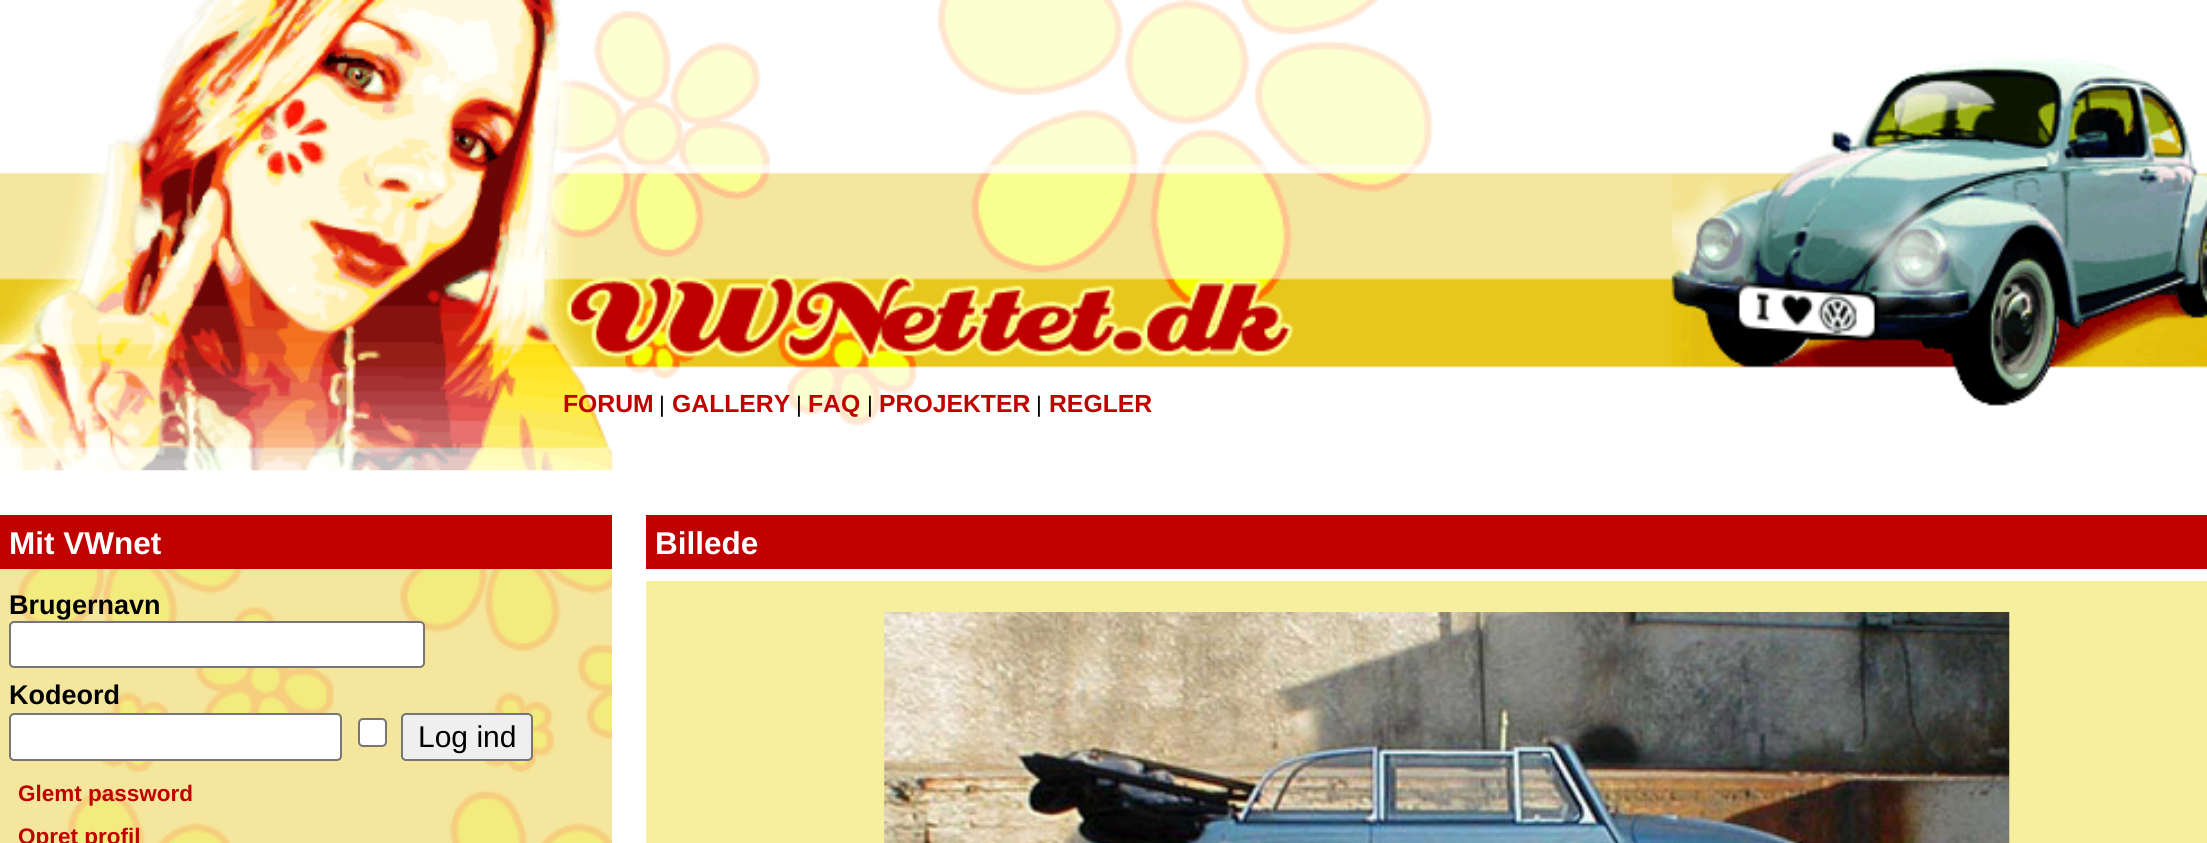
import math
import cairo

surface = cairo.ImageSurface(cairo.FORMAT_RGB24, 2207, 843)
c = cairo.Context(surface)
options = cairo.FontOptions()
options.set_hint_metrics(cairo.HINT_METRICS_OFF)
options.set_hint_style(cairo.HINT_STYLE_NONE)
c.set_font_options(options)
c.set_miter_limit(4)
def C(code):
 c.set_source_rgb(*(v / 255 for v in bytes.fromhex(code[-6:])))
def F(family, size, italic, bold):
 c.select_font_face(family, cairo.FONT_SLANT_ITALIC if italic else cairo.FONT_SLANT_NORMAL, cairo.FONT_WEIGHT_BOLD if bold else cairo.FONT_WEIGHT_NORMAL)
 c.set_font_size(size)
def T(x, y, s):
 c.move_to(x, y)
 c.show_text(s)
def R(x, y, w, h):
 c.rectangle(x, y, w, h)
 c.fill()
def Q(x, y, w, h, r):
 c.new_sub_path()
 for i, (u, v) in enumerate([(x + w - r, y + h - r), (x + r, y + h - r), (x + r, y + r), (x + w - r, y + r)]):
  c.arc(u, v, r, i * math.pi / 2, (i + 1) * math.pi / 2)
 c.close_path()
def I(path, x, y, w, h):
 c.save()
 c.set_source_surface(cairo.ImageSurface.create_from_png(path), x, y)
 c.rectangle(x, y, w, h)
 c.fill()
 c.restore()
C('ffffff')
c.paint()
I('1.png',0,0,2207,471)
F('Liberation Sans',24.75,0,1)
C('c10000')
T(563,412,'FORUM')
F('Liberation Sans',22.5,0,0)
C('000000')
T(659,412,'|')
F('Liberation Sans',24.75,0,1)
C('c10000')
T(672,412,'GALLERY')
F('Liberation Sans',22.5,0,0)
C('000000')
T(796,412,'|')
F('Liberation Sans',24.75,0,1)
C('c10000')
T(808,412,'FAQ')
F('Liberation Sans',22.5,0,0)
C('000000')
T(867,412,'|')
F('Liberation Sans',24.75,0,1)
C('c10000')
T(879,412,'PROJEKTER')
F('Liberation Sans',22.5,0,0)
C('000000')
T(1036,412,'|')
F('Liberation Sans',24.75,0,1)
C('c10000')
T(1049,412,'REGLER')
I('2.png',1671,58,536,348)
I('3.png',0,569,612,274)
R(0,515,612,54)
F('Liberation Sans',31.5,0,1)
C('ffffff')
T(9,554,'Mit VWnet')
F('Liberation Sans',27,0,1)
C('000000')
T(9,614,'Brugernavn')
C('ffffff')
Q(10,622,414,45,4)
c.fill_preserve()
C('767676')
c.stroke()
C('000000')
T(9,704,'Kodeord')
C('ffffff')
Q(10,714,331,46,4)
c.fill_preserve()
C('767676')
c.stroke()
C('ffffff')
Q(359,719,27,27,4)
c.fill_preserve()
C('767676')
c.stroke()
C('efefef')
Q(402,714,130,46,4)
c.fill_preserve()
C('767676')
c.stroke()
F('Liberation Sans',30,0,0)
C('000000')
T(418,747,'Log ind')
F('Liberation Sans',22.5,0,1)
C('c10000')
T(18,801,'Glemt password')
T(18,844,'Opret profil')
R(646,515,1561,54)
F('Liberation Sans',31.5,0,1)
C('ffffff')
T(655,554,'Billede')
C('f6f09e')
R(646,581,1561,262)
I('4.png',884,612,1126,231)
surface.write_to_png('o.png')
